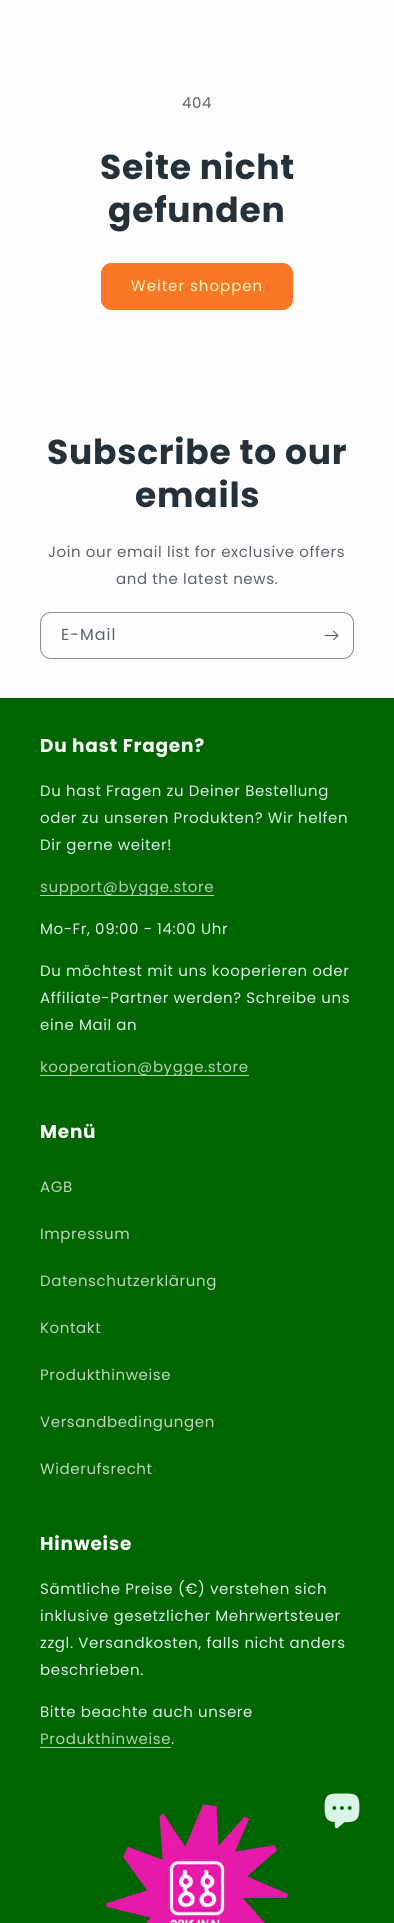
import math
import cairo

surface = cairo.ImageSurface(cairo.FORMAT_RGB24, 394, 1923)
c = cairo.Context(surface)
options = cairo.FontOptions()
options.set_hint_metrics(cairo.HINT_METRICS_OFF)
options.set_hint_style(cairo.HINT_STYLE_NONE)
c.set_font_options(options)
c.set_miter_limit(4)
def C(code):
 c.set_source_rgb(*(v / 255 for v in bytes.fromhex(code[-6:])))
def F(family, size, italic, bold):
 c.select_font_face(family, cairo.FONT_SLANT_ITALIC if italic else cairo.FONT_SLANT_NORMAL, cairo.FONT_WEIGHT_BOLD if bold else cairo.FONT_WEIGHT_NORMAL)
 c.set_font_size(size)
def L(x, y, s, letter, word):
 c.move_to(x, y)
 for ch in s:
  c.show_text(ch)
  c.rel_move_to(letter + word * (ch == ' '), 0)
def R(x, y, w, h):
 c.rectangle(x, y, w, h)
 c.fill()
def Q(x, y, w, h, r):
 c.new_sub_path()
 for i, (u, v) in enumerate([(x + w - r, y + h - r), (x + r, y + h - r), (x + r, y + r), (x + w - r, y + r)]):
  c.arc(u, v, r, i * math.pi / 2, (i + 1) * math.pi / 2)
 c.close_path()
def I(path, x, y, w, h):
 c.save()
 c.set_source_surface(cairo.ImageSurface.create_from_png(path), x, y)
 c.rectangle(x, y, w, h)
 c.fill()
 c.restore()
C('fdfdfd')
c.paint()
F('Poppins',15,0,0)
C('5c636a')
L(182,108,'404',.6,0)
F('Poppins',34.5,0,1)
C('263039')
L(100,179,'Seite nicht',.75,0)
L(108,222,'gefunden',.75,0)
C('f87828')
Q(101,263,192,47,11)
c.fill()
Q(101.5,263.5,191,46,10.5)
c.set_line_width(1)
c.stroke()
F('Poppins',15,0,0)
C('fef8bb')
L(131,291,'Weiter shoppen',1,0)
F('Poppins',34.5,0,1)
C('263039')
L(47,464,'Subscribe to our',.75,0)
L(135,507,'emails',.75,0)
F('Poppins',15,0,0)
C('5c636a')
L(48,557,'Join our email list for exclusive offers',.6,0)
L(116,584,'and the latest news.',.6,0)
Q(40.5,612.5,313,46,10.5)
C('888d92')
c.stroke()
F('Poppins',16,0,0)
C('5c636a')
L(61,640,'E-Mail',1,0)
I('1.png',324,630,15,11)
C('006400')
R(0,698,394,1225)
F('Poppins',18.5,0,1)
C('fdfdfd')
L(40,752,'Du hast Fragen?',.75,0)
F('Poppins',15,0,0)
C('daf4e8')
L(40,796,'Du hast Fragen zu Deiner Bestellung',.6,0)
L(40,823,'oder zu unseren Produkten? Wir helfen',.6,0)
L(40,850,'Dir gerne weiter!',.6,0)
C('b1cfb1')
R(40,895,174,1)
C('b2d0b2')
L(40,892,'support@bygge.store',.6,0)
C('daf4e8')
L(40,934,'Mo-Fr, 09:00 - 14:00 Uhr',.6,0)
L(40,976,'Du möchtest mit uns kooperieren oder',.6,0)
L(40,1003,'Affiliate-Partner werden? Schreibe uns',.6,0)
L(40,1030,'eine Mail an',.6,0)
C('b1cfb1')
R(40,1075,209,1)
C('b2d0b2')
L(40,1072,'kooperation@bygge.store',.6,0)
F('Poppins',18.5,0,1)
C('fdfdfd')
L(40,1138,'Menü',.75,0)
F('Poppins',15,0,0)
C('bed7be')
L(40,1192,'AGB',.6,0)
L(40,1239,'Impressum',.6,0)
L(40,1286,'Datenschutzerklärung',.6,0)
L(40,1333,'Kontakt',.6,0)
L(40,1380,'Produkthinweise',.6,0)
L(40,1427,'Versandbedingungen',.6,0)
L(40,1474,'Widerufsrecht',.6,0)
F('Poppins',18.5,0,1)
C('fdfdfd')
L(40,1550,'Hinweise',.75,0)
F('Poppins',15,0,0)
C('daf4e8')
L(40,1594,'Sämtliche Preise (€) verstehen sich',.6,0)
L(40,1621,'inklusive gesetzlicher Mehrwertsteuer',.6,0)
L(40,1648,'zzgl. Versandkosten, falls nicht anders',.6,0)
L(40,1675,'beschrieben.',.6,0)
L(40,1717,'Bitte beachte auch unsere',.6,0)
C('b2d0b2')
L(40,1744,'Produkthinweise',.6,0)
C('b1cfb1')
R(40,1747,131,1)
C('daf4e8')
L(171,1744,'.',.6,0)
I('2.png',106,1804,182,119)
I('3.png',324,1793,36,36)
surface.write_to_png('o.png')
